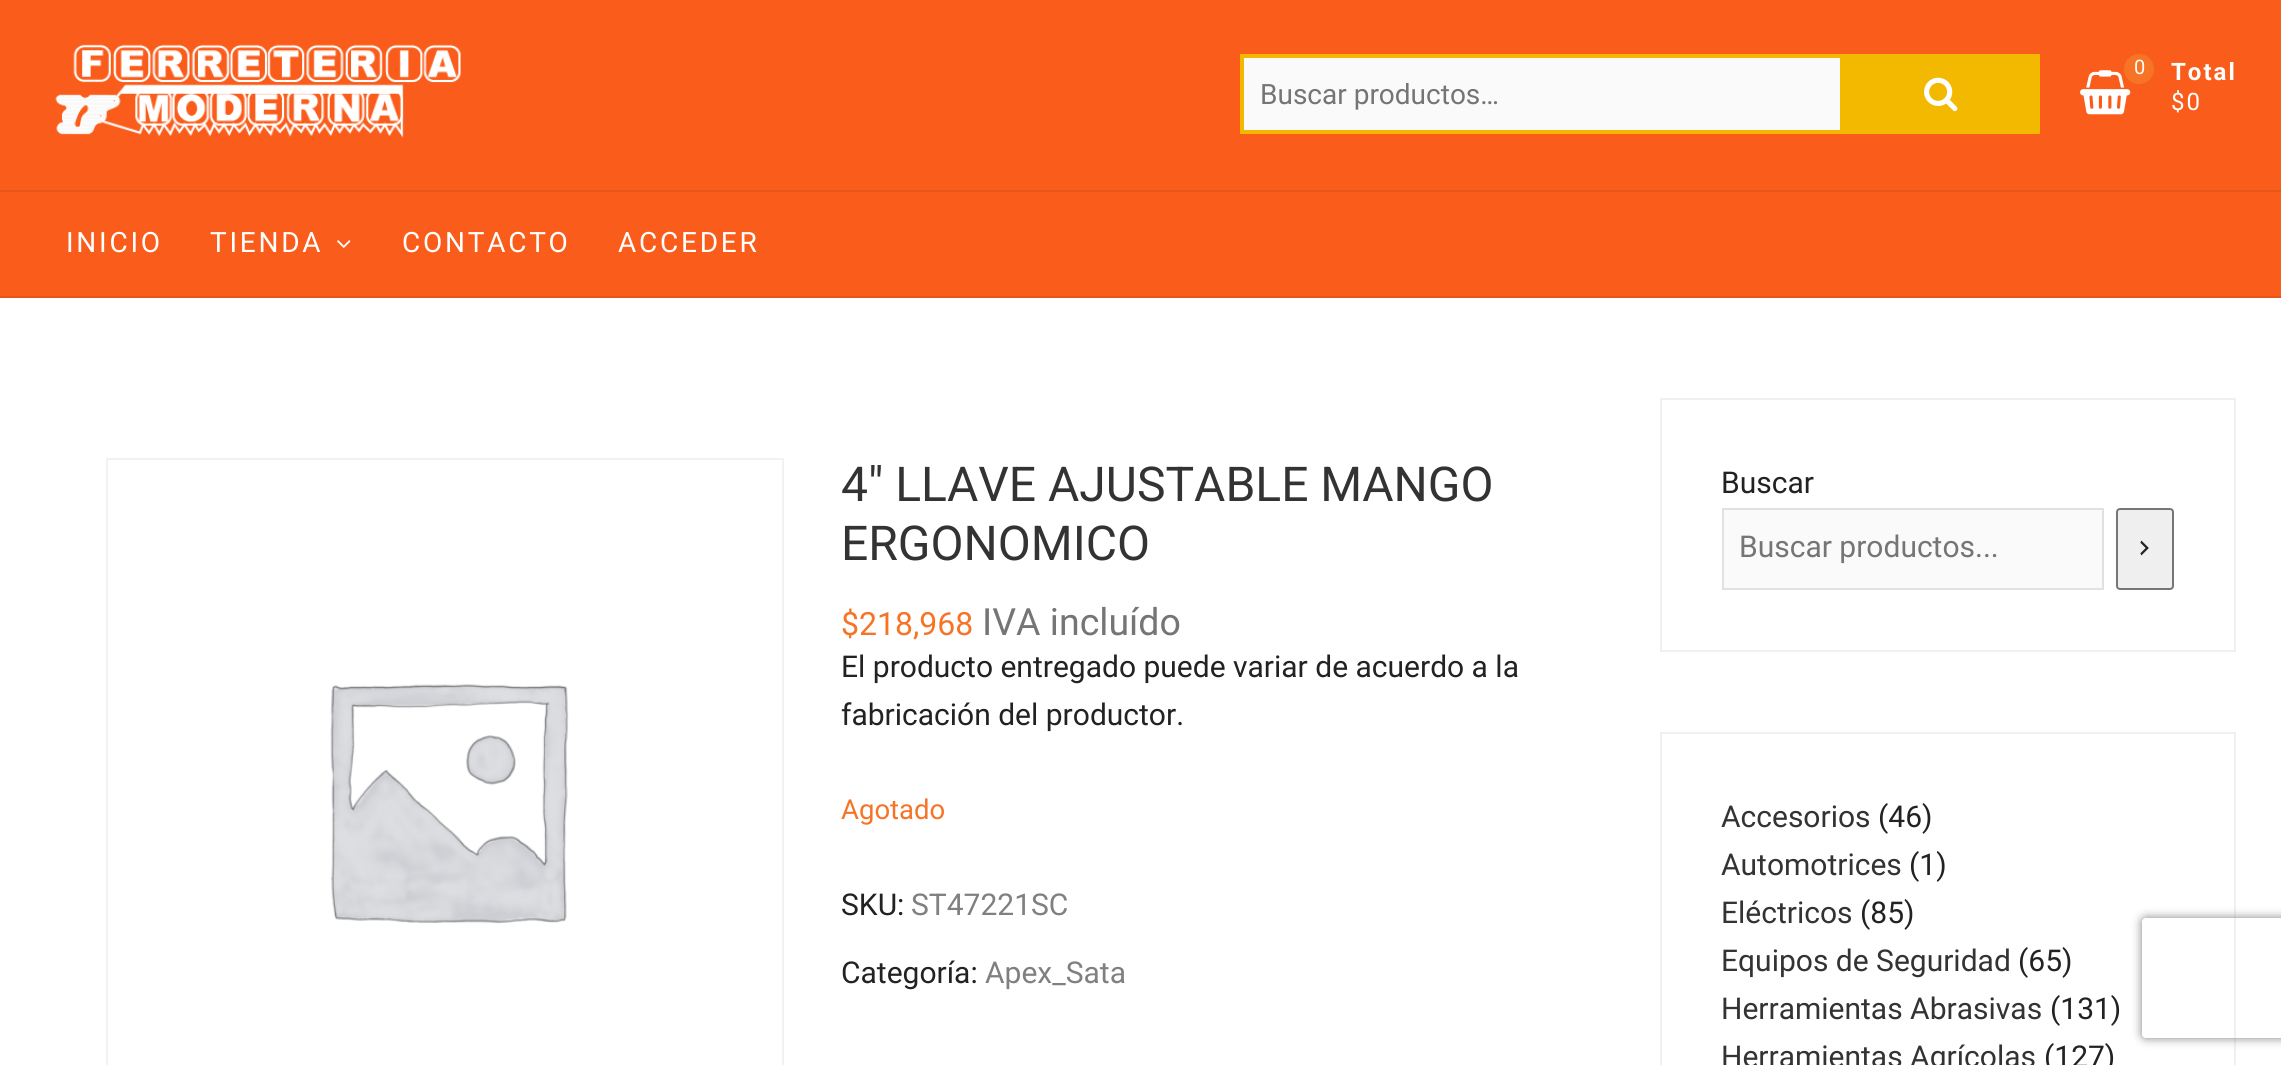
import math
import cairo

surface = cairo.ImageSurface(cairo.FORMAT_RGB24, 2281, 1065)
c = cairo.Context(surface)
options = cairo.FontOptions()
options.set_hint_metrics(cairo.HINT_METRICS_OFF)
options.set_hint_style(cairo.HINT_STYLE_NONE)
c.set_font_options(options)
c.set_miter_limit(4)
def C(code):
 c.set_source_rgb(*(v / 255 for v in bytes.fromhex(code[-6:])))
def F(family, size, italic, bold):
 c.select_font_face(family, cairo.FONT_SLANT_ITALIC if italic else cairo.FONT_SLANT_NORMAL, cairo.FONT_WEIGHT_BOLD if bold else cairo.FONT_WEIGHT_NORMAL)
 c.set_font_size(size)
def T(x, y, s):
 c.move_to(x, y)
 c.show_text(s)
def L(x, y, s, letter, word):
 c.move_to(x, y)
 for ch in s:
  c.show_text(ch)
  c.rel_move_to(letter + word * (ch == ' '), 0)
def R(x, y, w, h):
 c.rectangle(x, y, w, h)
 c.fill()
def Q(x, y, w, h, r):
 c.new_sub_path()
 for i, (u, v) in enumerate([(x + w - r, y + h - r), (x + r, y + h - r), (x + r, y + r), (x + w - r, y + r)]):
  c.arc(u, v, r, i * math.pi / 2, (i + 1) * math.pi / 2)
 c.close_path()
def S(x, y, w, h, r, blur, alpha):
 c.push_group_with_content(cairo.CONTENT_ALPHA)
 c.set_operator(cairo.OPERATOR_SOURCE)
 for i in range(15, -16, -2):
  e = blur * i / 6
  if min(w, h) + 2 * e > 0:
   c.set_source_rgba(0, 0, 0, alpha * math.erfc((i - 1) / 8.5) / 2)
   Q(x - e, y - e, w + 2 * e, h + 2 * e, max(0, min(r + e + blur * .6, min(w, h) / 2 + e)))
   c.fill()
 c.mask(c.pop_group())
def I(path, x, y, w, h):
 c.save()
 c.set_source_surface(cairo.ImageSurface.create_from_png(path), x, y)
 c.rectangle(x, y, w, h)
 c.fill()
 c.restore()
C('ffffff')
c.paint()
C('fa5d1b')
R(0,0,2281,190)
I('1.png',55,44,406,94)
C('fafafa')
R(1244,58,596,72)
C('f2b900')
R(1240,54,600,4)
R(1240,130,600,4)
R(1240,54,4,80)
F('Roboto',28,0,0)
C('757575')
T(1260,104,'Buscar productos…')
C('f2b900')
R(1840,54,200,80)
I('2.png',1924,77,34,35)
I('3.png',2080,70,51,45)
C('f77426')
c.arc(2139,69,15,0,2 * math.pi)
c.fill()
F('Roboto',20,0,0)
C('ffffff')
T(2134,74,'0')
F('Roboto',24,0,1)
L(2171,80,'Total',2,0)
F('Roboto',24,0,0)
L(2171,110,'$0',2,0)
C('fa5d1b')
R(0,192,2281,104)
C('e65619')
R(0,190,2281,2)
R(0,296,2281,2)
F('Roboto',28,0,0)
C('ffffff')
L(66,252,'INICIO',2.75,0)
L(210,252,'TIENDA',2.75,0)
I('4.png',337,240,14,8)
L(402,252,'CONTACTO',2.75,0)
L(618,252,'ACCEDER',2.75,0)
c.rectangle(107,459,676,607)
C('f2f2f2')
c.stroke()
I('5.png',330,684,239,240)
F('Roboto',48,0,0)
C('333333')
T(841,501,'4″ LLAVE AJUSTABLE MANGO')
T(841,560,'ERGONOMICO')
F('Roboto',32,0,0)
C('f77426')
T(841,635,'$218,968')
F('Roboto',37.5,0,0)
C('757575')
T(982,635,'IVA incluído')
F('Roboto',30,0,0)
C('222222')
T(841,677,'El producto entregado puede variar de acuerdo a la')
T(841,725,'fabricación del productor.')
F('Roboto',27.5,0,0)
C('f77426')
T(841,819,'Agotado')
F('Roboto',30,0,0)
C('222222')
T(841,915,'SKU:')
C('808080')
T(911,915,'ST47221SC')
C('222222')
T(841,983,'Categoría:')
C('808080')
T(985,983,'Apex_Sata')
c.rectangle(1661,399,574,252)
C('f0f0f0')
c.stroke()
C('222222')
T(1721,493,'Buscar')
C('fafafa')
c.rectangle(1723,509,380,80)
c.fill_preserve()
C('e1e1e1')
c.stroke()
C('757575')
T(1739,557,'Buscar productos...')
C('efefef')
Q(2117,509,56,80,3)
c.fill_preserve()
C('767676')
c.stroke()
I('6.png',2140,540,9,16)
c.rectangle(1661,733,574,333)
C('f0f0f0')
c.stroke()
C('333333')
T(1721,827,'Accesorios')
C('222222')
T(1878,827,'(46)')
C('333333')
T(1721,875,'Automotrices')
C('222222')
T(1909,875,'(1)')
C('333333')
T(1721,923,'Eléctricos')
C('222222')
T(1860,923,'(85)')
C('333333')
T(1721,971,'Equipos de Seguridad')
C('222222')
T(2018,971,'(65)')
C('333333')
T(1721,1019,'Herramientas Abrasivas')
C('222222')
T(2050,1019,'(131)')
C('333333')
T(1721,1067,'Herramientas Agrícolas')
C('222222')
T(2044,1067,'(127)')
c.save()
c.set_fill_rule(cairo.FILL_RULE_EVEN_ODD)
c.new_path()
c.move_to(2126,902)
c.line_to(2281,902)
c.line_to(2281,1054)
c.line_to(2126,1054)
c.close_path()
c.move_to(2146,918)
c.line_to(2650,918)
c.curve_to(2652,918,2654,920,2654,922)
c.line_to(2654,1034)
c.curve_to(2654,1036,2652,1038,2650,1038)
c.line_to(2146,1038)
c.curve_to(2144,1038,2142,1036,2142,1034)
c.line_to(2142,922)
c.curve_to(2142,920,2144,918,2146,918)
c.close_path()
c.clip()
C('808080')
S(2142,918,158,120,4,5,1)
c.restore()
surface.write_to_png('o.png')
